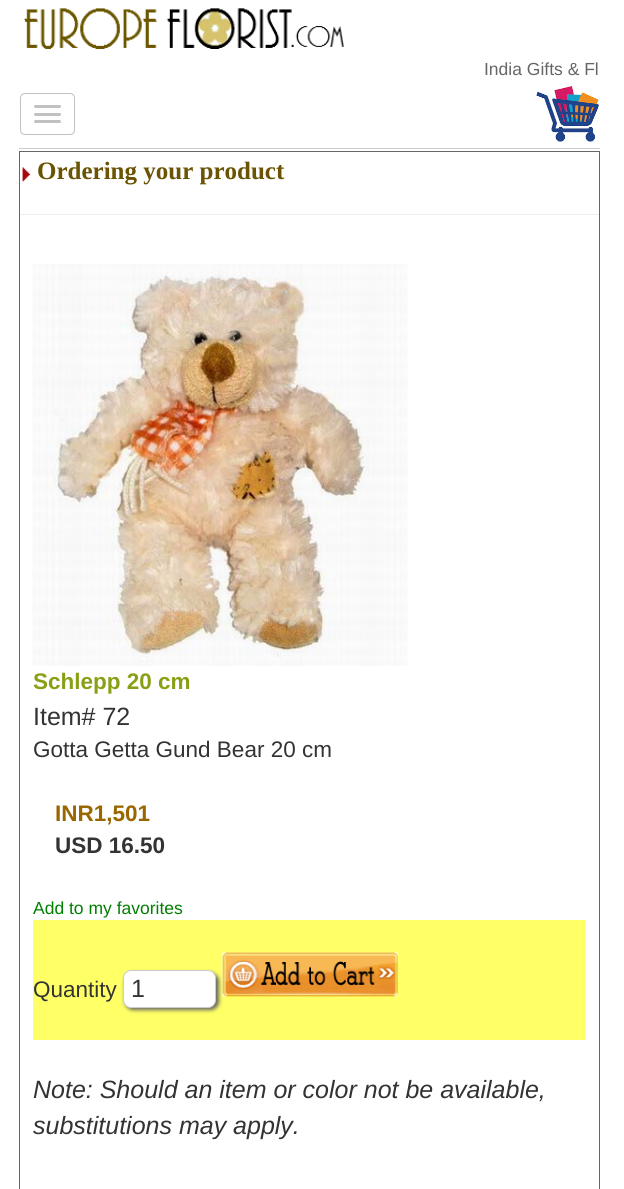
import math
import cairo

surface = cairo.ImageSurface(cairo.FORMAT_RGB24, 624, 1189)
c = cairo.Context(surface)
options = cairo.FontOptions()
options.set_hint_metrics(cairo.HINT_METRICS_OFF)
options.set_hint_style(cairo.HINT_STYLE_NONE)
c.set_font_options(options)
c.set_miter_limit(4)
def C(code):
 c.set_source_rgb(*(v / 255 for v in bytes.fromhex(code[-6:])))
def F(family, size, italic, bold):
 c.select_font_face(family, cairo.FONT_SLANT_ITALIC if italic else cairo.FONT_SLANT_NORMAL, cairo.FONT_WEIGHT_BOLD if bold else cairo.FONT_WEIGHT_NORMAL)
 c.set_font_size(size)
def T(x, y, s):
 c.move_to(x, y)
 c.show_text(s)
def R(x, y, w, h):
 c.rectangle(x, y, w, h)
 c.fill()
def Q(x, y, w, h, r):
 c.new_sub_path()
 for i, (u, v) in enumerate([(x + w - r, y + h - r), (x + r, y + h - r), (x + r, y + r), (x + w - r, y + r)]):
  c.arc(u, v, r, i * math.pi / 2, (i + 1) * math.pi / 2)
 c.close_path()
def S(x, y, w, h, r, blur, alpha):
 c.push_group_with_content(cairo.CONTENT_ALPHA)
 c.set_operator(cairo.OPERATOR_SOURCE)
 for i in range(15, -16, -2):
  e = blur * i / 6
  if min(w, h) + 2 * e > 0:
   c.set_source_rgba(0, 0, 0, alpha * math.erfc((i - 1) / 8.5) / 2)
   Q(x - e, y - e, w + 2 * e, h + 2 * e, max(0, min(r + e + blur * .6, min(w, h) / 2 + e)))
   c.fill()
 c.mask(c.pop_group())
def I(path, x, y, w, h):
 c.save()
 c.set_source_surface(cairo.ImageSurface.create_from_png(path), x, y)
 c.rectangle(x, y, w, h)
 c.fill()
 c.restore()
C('ffffff')
c.paint()
I('1.png',24,8,320,41)
F('Liberation Sans',17.5,0,0)
C('666666')
T(484,75,'India Gifts & Fl')
Q(20.5,93.5,54,41,4.5)
C('c1c1c1')
c.set_line_width(1)
c.stroke()
Q(34,105,27,3,1.5)
c.fill()
Q(34,113,27,3,1.5)
c.fill()
Q(34,120,27,3,1.5)
c.fill()
I('2.png',536,86,63,56)
C('cccccc')
R(19,148,581,1)
C('666666')
R(19,151,581,1)
R(599,151,1,1038)
R(19,151,1,1038)
I('3.png',22,167,9,15)
F('Liberation Serif',25,0,1)
C('6a5302')
T(37,179,'Ordering your product')
C('eeeeee')
R(20,214,579,1)
I('4.png',32,264,376,402)
F('Liberation Sans',22.5,0,1)
C('88a016')
T(33,689,'Schlepp 20 cm')
F('Liberation Sans',25,0,0)
C('333333')
T(33,725,'Item# 72')
F('Liberation Sans',22.5,0,0)
T(33,757,'Gotta Getta Gund Bear 20 cm')
F('Liberation Sans',22.5,0,1)
C('996600')
T(55,821,'INR1,501')
C('333333')
T(55,853,'USD 16.50')
F('Liberation Sans',17.5,0,0)
C('008000')
T(33,914,'Add to my favorites')
C('ffff66')
R(33,920,553,120)
F('Liberation Sans',22.5,0,0)
C('333333')
T(33,997,'Quantity')
I('5.png',222,952,176,45)
C('666666')
S(125,973,94,37,8,2,1)
C('ffffff')
Q(123.5,970.5,92,37,7.5)
c.fill_preserve()
C('cccccc')
c.stroke()
F('Liberation Sans',25,0,0)
C('333333')
T(131,997,'1')
F('Liberation Sans',25,1,0)
T(33,1098,'Note: Should an item or color not be available,')
T(33,1134,'substitutions may apply.')
surface.write_to_png('o.png')
